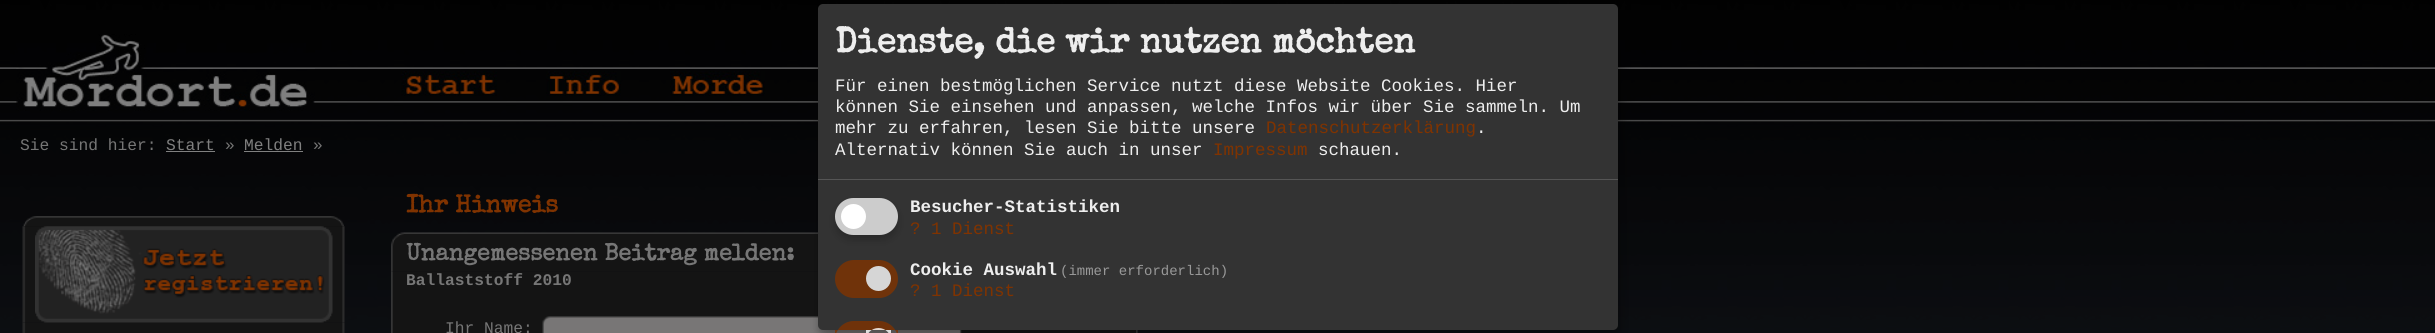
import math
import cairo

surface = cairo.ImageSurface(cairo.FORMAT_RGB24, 2435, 333)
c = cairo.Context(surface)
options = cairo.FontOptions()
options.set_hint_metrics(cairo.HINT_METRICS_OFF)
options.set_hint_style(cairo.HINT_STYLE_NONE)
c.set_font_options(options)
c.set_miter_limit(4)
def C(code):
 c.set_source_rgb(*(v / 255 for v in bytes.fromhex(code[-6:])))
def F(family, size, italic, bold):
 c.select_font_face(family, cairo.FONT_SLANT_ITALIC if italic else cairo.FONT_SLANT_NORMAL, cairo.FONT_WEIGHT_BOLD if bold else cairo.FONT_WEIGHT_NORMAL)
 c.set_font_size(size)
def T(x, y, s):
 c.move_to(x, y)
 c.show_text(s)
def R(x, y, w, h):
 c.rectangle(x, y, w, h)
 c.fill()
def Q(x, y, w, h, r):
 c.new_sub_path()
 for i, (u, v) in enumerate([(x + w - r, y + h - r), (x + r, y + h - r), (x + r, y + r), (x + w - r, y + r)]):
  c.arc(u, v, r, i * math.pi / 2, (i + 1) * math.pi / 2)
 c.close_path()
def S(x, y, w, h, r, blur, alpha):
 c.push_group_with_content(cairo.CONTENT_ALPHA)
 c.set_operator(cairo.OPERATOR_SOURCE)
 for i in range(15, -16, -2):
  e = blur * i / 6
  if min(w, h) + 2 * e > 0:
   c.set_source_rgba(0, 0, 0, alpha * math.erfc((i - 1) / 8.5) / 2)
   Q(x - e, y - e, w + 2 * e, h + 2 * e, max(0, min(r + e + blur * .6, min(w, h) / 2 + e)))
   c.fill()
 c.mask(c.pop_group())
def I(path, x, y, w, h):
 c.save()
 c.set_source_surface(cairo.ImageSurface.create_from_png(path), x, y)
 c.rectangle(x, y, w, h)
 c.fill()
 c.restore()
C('ffffff')
c.paint()
I('1.png',0,0,2435,333)
I('2.png',16,34,299,77)
I('3.png',401,71,96,25)
I('4.png',546,71,75,25)
I('5.png',670,71,95,25)
F('Liberation Mono',16.25,0,0)
C('767676')
T(20,150,'Sie sind hier:')
C('808080')
T(166,150,'Start')
R(166,151,49,1)
C('767676')
T(225,150,'»')
C('808080')
T(244,150,'Melden')
R(244,151,59,1)
C('767676')
T(313,150,'»')
I('6.png',23,216,321,11)
I('7.png',22,226,323,97)
I('9.png',22,322,323,11)
I('8.png',35,226,298,97)
F('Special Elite',24.75,0,1)
C('803300')
T(406,212,'Ihr Hinweis')
C('07080a')
R(391,255,8,16)
I('10.png',391,232,427,40)
F('Special Elite',23.4,0,1)
C('767676')
T(406,260,'Unangemessenen Beitrag melden:')
I('11.png',391,271,747,62)
F('Liberation Mono',16.25,0,1)
T(406,285,'Ballaststoff 2010')
F('Liberation Mono',16.25,0,0)
T(445,333,'Ihr Name:')
I('12.png',542,316,420,17)
C('000000')
S(824,10,800,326,5,6,.19)
S(818,9,800,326,5,4,.2)
C('333333')
Q(818,4,800,326,5)
c.fill()
C('555555')
R(818,179,800,1)
F('Special Elite',35,0,1)
C('eeeeee')
T(835,52,'Dienste, die wir nutzen möchten')
F('Liberation Mono',17.5,0,0)
T(835,91,'Für einen bestmöglichen Service nutzt diese Website Cookies. Hier')
T(835,112,'können Sie einsehen und anpassen, welche Infos wir über Sie sammeln. Um')
T(835,133,'mehr zu erfahren, lesen Sie bitte unsere')
C('803300')
T(1266,133,'Datenschutzerklärung')
C('eeeeee')
T(1476,133,'.')
T(835,155,'Alternativ können Sie auch in unser')
C('803300')
T(1213,155,'Impressum')
C('eeeeee')
T(1318,155,'schauen.')
C('000000')
S(835,203,63,37,18.5,4,.2)
C('cccccc')
Q(835,198,63,37,18.5)
c.fill()
C('ffffff')
c.arc(853.5,216.5,12.5,0,2 * math.pi)
c.fill()
F('Liberation Mono',17.5,0,1)
C('eeeeee')
T(910,212,'Besucher-Statistiken')
F('Liberation Mono',17.5,0,0)
C('803300')
T(910,234,'? 1 Dienst')
C('70330a')
Q(835,260,63,38,19)
c.fill()
C('d6d6d6')
c.arc(878.5,278.5,12.5,0,2 * math.pi)
c.fill()
F('Liberation Mono',17.5,0,1)
C('eeeeee')
T(910,275,'Cookie Auswahl')
F('Liberation Mono',14,0,0)
C('999999')
T(1060,275,'(immer erforderlich)')
F('Liberation Mono',17.5,0,0)
C('803300')
T(910,296,'? 1 Dienst')
c.set_source_rgba(0.498,0.2,0,0.8)
c.new_path()
c.move_to(854,321)
c.line_to(879,321)
c.curve_to(889.5,321,898,329.5,898,340)
c.line_to(898,330)
c.line_to(835,330)
c.line_to(835,340)
c.curve_to(835,329.5,843.5,321,854,321)
c.close_path()
c.fill()
c.set_source_rgba(1,1,1,0.8)
c.new_path()
c.move_to(878.5,328)
c.curve_to(885.5,328,891,333.5,891,340.5)
c.line_to(891,330)
c.line_to(866,330)
c.line_to(866,340.5)
c.curve_to(866,333.5,871.5,328,878.5,328)
c.close_path()
c.fill()
surface.write_to_png('o.png')
